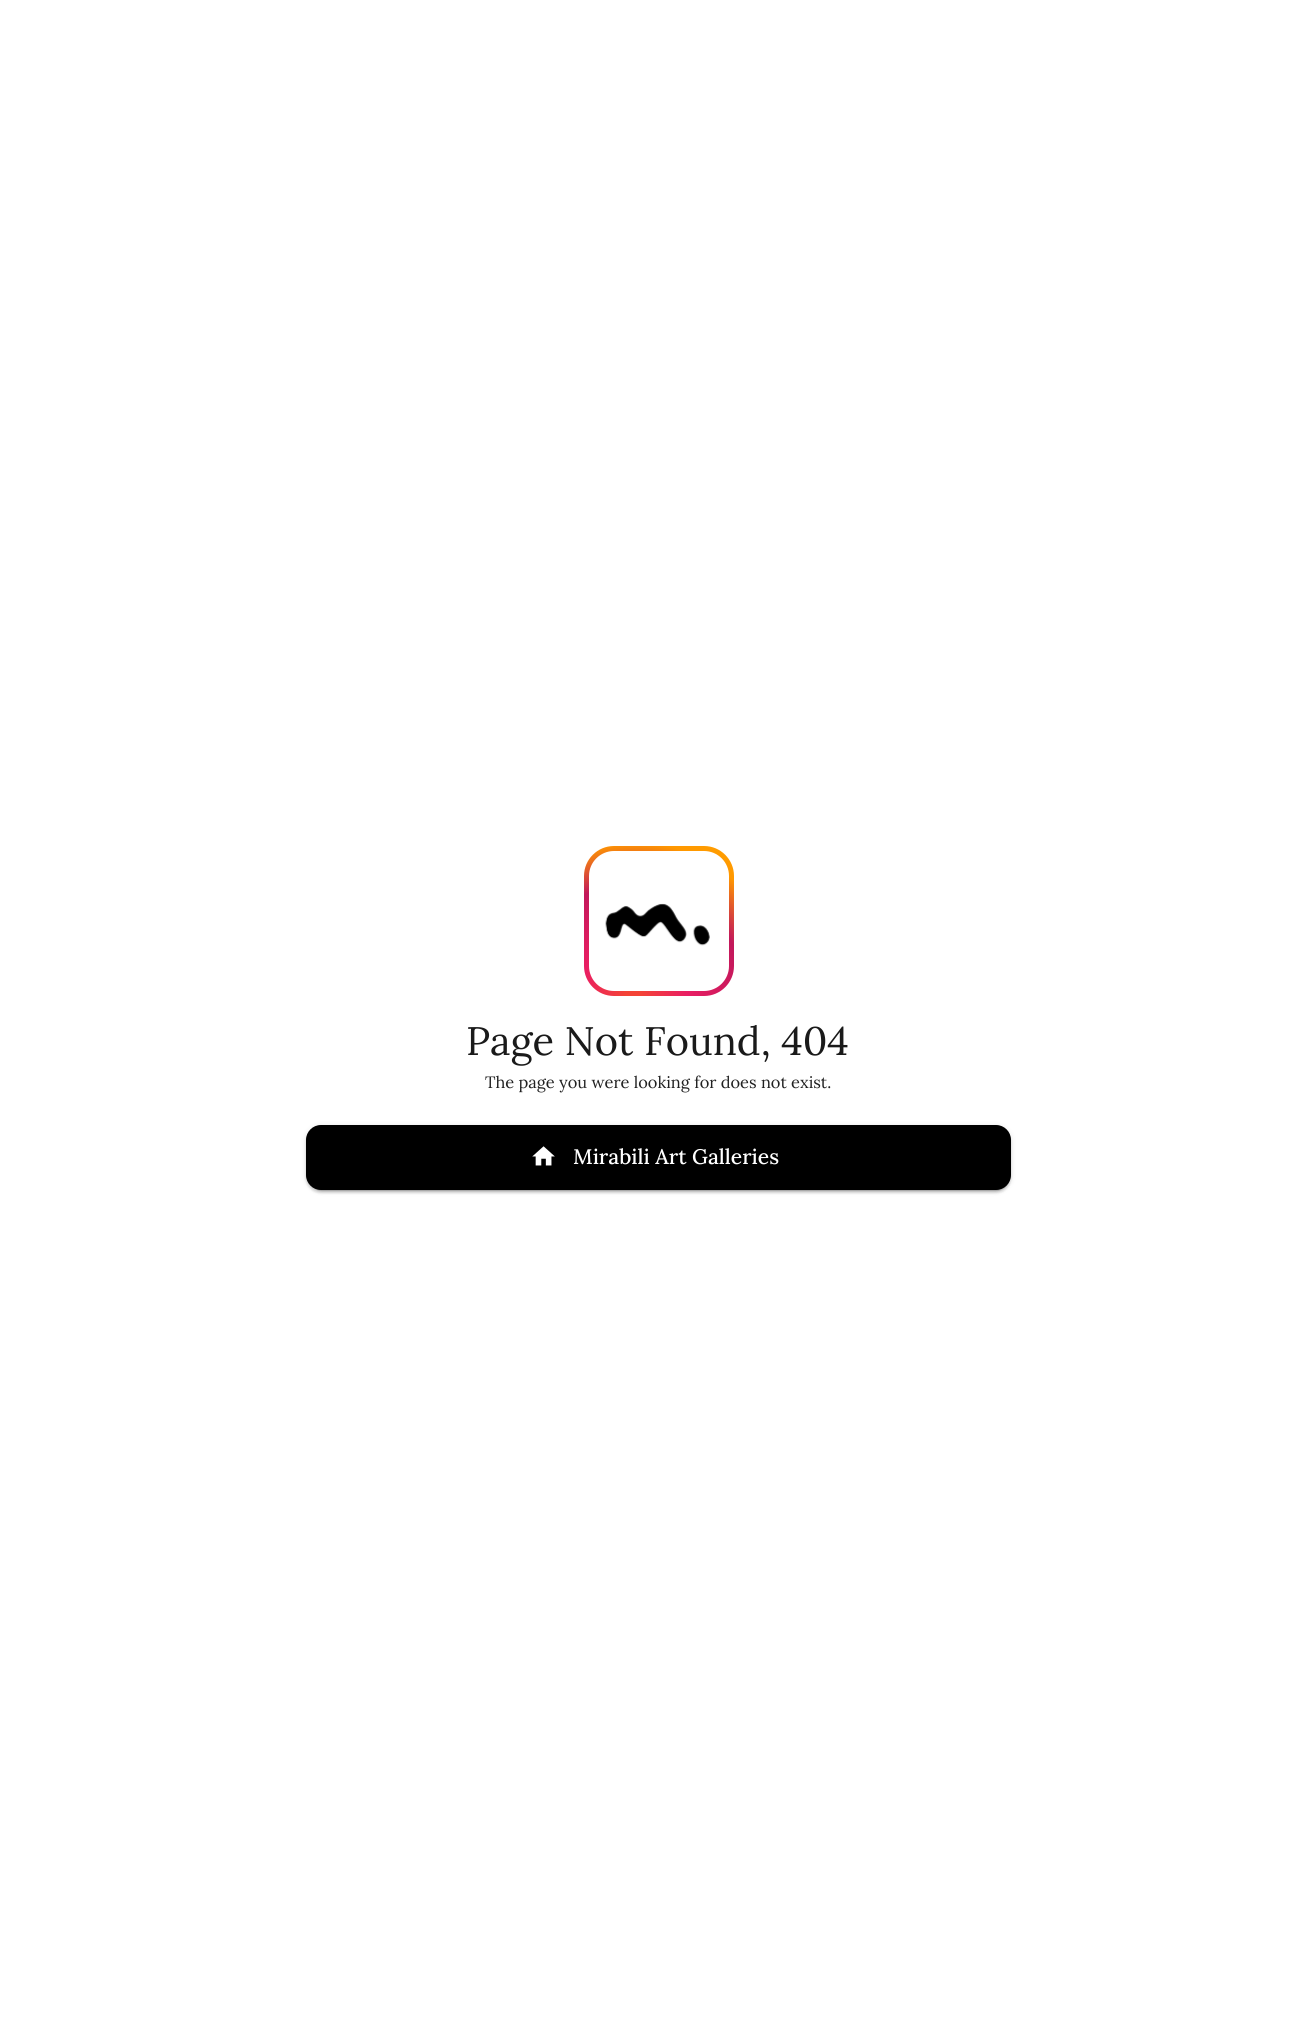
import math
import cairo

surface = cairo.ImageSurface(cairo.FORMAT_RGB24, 1316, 2041)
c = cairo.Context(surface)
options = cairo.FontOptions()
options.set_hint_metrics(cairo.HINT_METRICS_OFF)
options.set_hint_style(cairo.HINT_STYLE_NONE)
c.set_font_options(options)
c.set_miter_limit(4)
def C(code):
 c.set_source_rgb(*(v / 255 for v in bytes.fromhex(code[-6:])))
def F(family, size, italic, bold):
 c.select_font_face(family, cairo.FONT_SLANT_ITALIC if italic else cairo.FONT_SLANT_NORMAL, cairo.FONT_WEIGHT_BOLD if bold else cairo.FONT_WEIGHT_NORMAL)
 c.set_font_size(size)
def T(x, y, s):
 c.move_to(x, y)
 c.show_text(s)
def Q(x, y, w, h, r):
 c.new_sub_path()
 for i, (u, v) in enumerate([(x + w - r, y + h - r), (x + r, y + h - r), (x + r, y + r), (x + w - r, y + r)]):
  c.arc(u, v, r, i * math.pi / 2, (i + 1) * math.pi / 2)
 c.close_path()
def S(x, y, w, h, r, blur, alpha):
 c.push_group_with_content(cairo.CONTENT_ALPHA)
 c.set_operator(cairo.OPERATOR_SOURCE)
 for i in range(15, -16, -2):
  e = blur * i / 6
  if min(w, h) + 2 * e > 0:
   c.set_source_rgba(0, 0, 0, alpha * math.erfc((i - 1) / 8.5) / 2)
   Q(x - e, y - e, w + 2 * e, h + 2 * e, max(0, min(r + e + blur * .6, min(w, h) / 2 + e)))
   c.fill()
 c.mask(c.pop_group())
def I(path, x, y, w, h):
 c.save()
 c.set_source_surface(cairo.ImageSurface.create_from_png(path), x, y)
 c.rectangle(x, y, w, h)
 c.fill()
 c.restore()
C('ffffff')
c.paint()
gradient = cairo.RadialGradient(633,996,0,633,996,181)
gradient.add_color_stop_rgba(.04,0.957,0.263,0.212,1)
gradient.add_color_stop_rgba(.3,0.914,0.118,0.388,1)
gradient.add_color_stop_rgba(.62,0.761,0.094,0.357,1)
gradient.add_color_stop_rgba(.85,1,0.596,0,1)
gradient.add_color_stop_rgba(1,1,0.627,0,1)
c.set_source(gradient)
Q(584,846,150,150,30)
c.fill()
C('ffffff')
Q(591.5,853.5,135,135,22.5)
c.fill_preserve()
c.set_line_width(5)
c.stroke()
I('1.png',605,903,105,43)
F('Lora',39.75,0,0)
C('1a1a1a')
T(466,1055,'Page Not Found, 404')
F('Lora',16.4,0,0)
C('212121')
T(485,1088,'The page you were looking for does not exist.')
C('000000')
S(306,1126,705,65,15,3,.12)
S(306,1128,705,65,15,1,.14)
S(309,1131,700,60,13,.5,.2)
C('000000')
Q(306,1125,705,65,15)
c.fill()
I('2.png',532,1146,23,20)
F('Lora Medium',21,0,0)
C('ffffff')
T(573,1164,'Mirabili Art Galleries')
surface.write_to_png('o.png')
